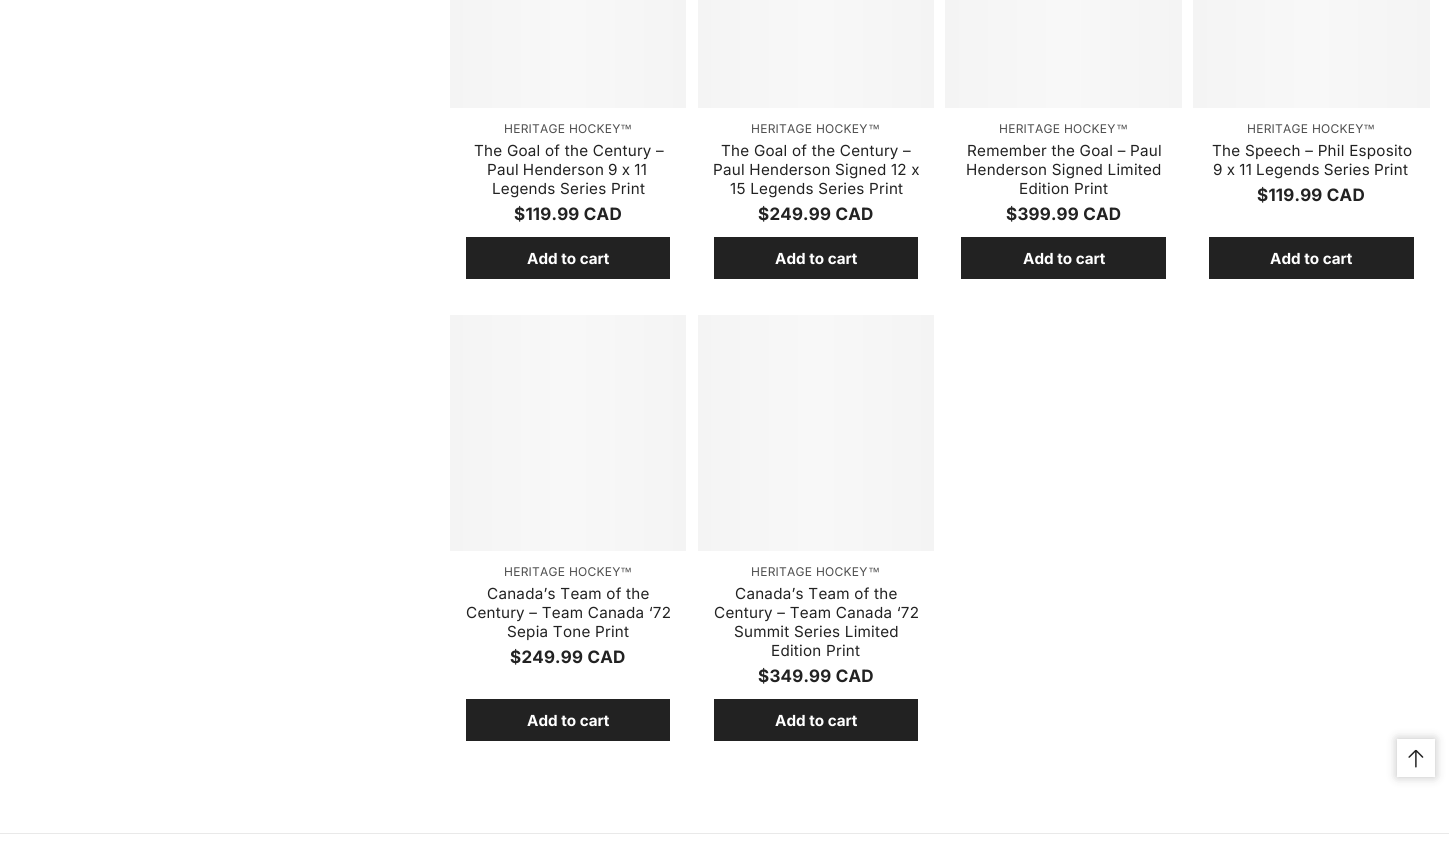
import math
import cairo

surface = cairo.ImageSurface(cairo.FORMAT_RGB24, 1449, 862)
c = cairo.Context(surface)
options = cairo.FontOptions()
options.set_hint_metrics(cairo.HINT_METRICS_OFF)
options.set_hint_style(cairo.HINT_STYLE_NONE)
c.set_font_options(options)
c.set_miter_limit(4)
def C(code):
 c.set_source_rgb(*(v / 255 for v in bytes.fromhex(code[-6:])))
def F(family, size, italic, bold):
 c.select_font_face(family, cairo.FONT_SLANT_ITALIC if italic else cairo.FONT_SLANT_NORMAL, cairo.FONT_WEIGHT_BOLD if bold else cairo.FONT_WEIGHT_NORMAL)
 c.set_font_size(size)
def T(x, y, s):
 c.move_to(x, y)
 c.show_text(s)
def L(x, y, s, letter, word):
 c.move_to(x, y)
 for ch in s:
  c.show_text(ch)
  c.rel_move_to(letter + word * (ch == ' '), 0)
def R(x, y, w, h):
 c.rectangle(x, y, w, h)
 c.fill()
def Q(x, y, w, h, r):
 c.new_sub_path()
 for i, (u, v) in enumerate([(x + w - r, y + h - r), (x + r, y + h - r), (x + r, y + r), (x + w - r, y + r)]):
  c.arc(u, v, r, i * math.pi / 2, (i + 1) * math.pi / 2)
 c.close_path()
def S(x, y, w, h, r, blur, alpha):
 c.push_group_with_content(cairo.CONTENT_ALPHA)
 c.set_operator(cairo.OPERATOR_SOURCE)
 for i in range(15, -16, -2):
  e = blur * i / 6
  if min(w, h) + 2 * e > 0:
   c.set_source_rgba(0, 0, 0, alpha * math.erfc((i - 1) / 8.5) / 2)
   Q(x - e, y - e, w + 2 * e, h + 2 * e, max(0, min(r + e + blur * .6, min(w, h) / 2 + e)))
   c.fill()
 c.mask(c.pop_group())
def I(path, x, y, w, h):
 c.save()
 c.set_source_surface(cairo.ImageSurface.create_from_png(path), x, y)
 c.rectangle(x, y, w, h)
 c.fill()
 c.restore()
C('ffffff')
c.paint()
gradient = cairo.LinearGradient(450,-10,686,-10)
gradient.add_color_stop_rgba(0,0.957,0.957,0.957,1)
gradient.add_color_stop_rgba(.5,0.973,0.973,0.973,1)
gradient.add_color_stop_rgba(1,0.957,0.957,0.957,1)
c.set_source(gradient)
R(450,0,236,108)
F('Inter',12,0,0)
C('4e4e4e')
L(504,133,'HERITAGE HOCKEY',.25,0)
F('Liberation Sans',12,0,0)
L(620,133,'™',.25,0)
F('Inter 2',15.25,0,0)
C('222222')
L(474,156,'The Goal of the Century –',.25,0)
L(487,175,'Paul Henderson 9 x 11',.25,-.5)
L(492,194,'Legends Series Print',.25,0)
F('Inter',17,0,1)
L(514,220,'$119.99 CAD',.25,0)
R(466,237,204,42)
F('Inter 2',15.25,0,1)
C('ffffff')
T(527,264,'Add to cart')
gradient = cairo.LinearGradient(698,-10,934,-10)
gradient.add_color_stop_rgba(0,0.957,0.957,0.957,1)
gradient.add_color_stop_rgba(.5,0.973,0.973,0.973,1)
gradient.add_color_stop_rgba(1,0.957,0.957,0.957,1)
c.set_source(gradient)
R(698,0,236,108)
F('Inter',12,0,0)
C('4e4e4e')
L(751,133,'HERITAGE HOCKEY',.25,0)
F('Liberation Sans',12,0,0)
L(868,133,'™',.25,0)
F('Inter 2',15.25,0,0)
C('222222')
L(721,156,'The Goal of the Century –',.25,0)
L(713,175,'Paul Henderson Signed 12 x',.25,0)
L(730,194,'15 Legends Series Print',.25,0)
F('Inter',17,0,1)
L(758,220,'$249.99 CAD',.25,0)
R(714,237,204,42)
F('Inter 2',15.25,0,1)
C('ffffff')
T(775,264,'Add to cart')
gradient = cairo.LinearGradient(945,-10,1182,-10)
gradient.add_color_stop_rgba(0,0.957,0.957,0.957,1)
gradient.add_color_stop_rgba(.5,0.973,0.973,0.973,1)
gradient.add_color_stop_rgba(1,0.957,0.957,0.957,1)
c.set_source(gradient)
R(945,0,237,108)
F('Inter',12,0,0)
C('4e4e4e')
L(999,133,'HERITAGE HOCKEY',.25,0)
F('Liberation Sans',12,0,0)
L(1116,133,'™',.25,0)
F('Inter 2',15.25,0,0)
C('222222')
L(967,156,'Remember the Goal – Paul',.25,0)
L(966,175,'Henderson Signed Limited',.25,0)
L(1019,194,'Edition Print',.25,0)
F('Inter',17,0,1)
L(1006,220,'$399.99 CAD',.25,0)
R(961,237,205,42)
F('Inter 2',15.25,0,1)
C('ffffff')
T(1023,264,'Add to cart')
gradient = cairo.LinearGradient(1193,-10,1430,-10)
gradient.add_color_stop_rgba(0,0.957,0.957,0.957,1)
gradient.add_color_stop_rgba(.5,0.973,0.973,0.973,1)
gradient.add_color_stop_rgba(1,0.957,0.957,0.957,1)
c.set_source(gradient)
R(1193,0,237,108)
F('Inter',12,0,0)
C('4e4e4e')
L(1247,133,'HERITAGE HOCKEY',.25,0)
F('Liberation Sans',12,0,0)
L(1363,133,'™',.25,0)
F('Inter 2',15.25,0,0)
C('222222')
L(1212,156,'The Speech – Phil Esposito',.25,0)
L(1213,175,'9 x 11 Legends Series Print',.25,-.5)
F('Inter',17,0,1)
L(1257,201,'$119.99 CAD',.25,0)
R(1209,237,205,42)
F('Inter 2',15.25,0,1)
C('ffffff')
T(1270,264,'Add to cart')
gradient = cairo.LinearGradient(450,433,686,433)
gradient.add_color_stop_rgba(0,0.957,0.957,0.957,1)
gradient.add_color_stop_rgba(.5,0.973,0.973,0.973,1)
gradient.add_color_stop_rgba(1,0.957,0.957,0.957,1)
c.set_source(gradient)
R(450,315,236,236)
F('Inter',12,0,0)
C('4e4e4e')
L(504,576,'HERITAGE HOCKEY',.25,0)
F('Liberation Sans',12,0,0)
L(620,576,'™',.25,0)
F('Inter 2',15.25,0,0)
C('222222')
L(487,599,'Canada’s Team of the',.25,0)
L(466,618,'Century – Team Canada ‘72',.25,0)
L(507,637,'Sepia Tone Print',.25,0)
F('Inter',17,0,1)
L(510,663,'$249.99 CAD',.25,0)
R(466,699,204,42)
F('Inter 2',15.25,0,1)
C('ffffff')
T(527,726,'Add to cart')
gradient = cairo.LinearGradient(698,433,934,433)
gradient.add_color_stop_rgba(0,0.957,0.957,0.957,1)
gradient.add_color_stop_rgba(.5,0.973,0.973,0.973,1)
gradient.add_color_stop_rgba(1,0.957,0.957,0.957,1)
c.set_source(gradient)
R(698,315,236,236)
F('Inter',12,0,0)
C('4e4e4e')
L(751,576,'HERITAGE HOCKEY',.25,0)
F('Liberation Sans',12,0,0)
L(868,576,'™',.25,0)
F('Inter 2',15.25,0,0)
C('222222')
L(735,599,'Canada’s Team of the',.25,0)
L(714,618,'Century – Team Canada ‘72',.25,0)
L(734,637,'Summit Series Limited',.25,0)
L(771,656,'Edition Print',.25,0)
F('Inter',17,0,1)
L(758,682,'$349.99 CAD',.25,0)
R(714,699,204,42)
F('Inter 2',15.25,0,1)
C('ffffff')
T(775,726,'Add to cart')
c.save()
c.set_fill_rule(cairo.FILL_RULE_EVEN_ODD)
c.new_path()
c.move_to(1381,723)
c.line_to(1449,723)
c.line_to(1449,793)
c.line_to(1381,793)
c.close_path()
c.move_to(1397,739)
c.line_to(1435,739)
c.line_to(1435,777)
c.line_to(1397,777)
c.close_path()
c.clip()
C('000000')
S(1397,739,38,38,0,5,.25)
c.restore()
I('1.png',1408,749,16,19)
C('e9e9e9')
R(0,833,1449,1)
surface.write_to_png('o.png')
